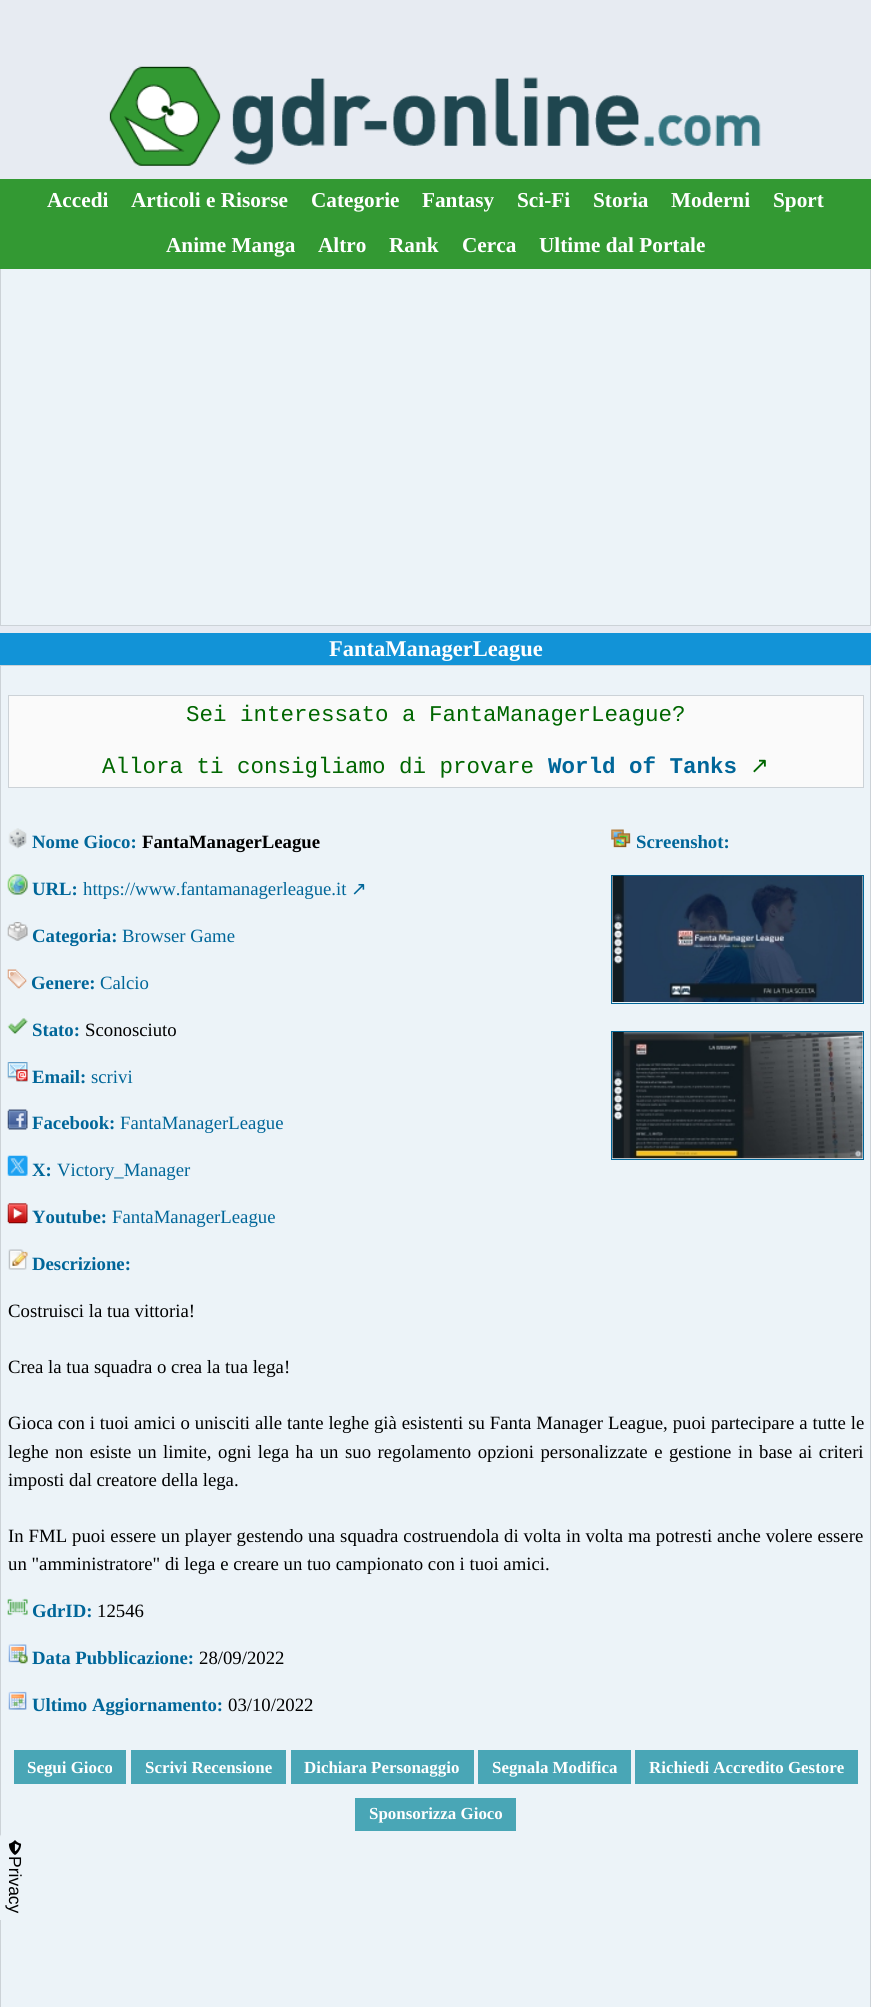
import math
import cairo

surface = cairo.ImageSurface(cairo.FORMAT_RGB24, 871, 2007)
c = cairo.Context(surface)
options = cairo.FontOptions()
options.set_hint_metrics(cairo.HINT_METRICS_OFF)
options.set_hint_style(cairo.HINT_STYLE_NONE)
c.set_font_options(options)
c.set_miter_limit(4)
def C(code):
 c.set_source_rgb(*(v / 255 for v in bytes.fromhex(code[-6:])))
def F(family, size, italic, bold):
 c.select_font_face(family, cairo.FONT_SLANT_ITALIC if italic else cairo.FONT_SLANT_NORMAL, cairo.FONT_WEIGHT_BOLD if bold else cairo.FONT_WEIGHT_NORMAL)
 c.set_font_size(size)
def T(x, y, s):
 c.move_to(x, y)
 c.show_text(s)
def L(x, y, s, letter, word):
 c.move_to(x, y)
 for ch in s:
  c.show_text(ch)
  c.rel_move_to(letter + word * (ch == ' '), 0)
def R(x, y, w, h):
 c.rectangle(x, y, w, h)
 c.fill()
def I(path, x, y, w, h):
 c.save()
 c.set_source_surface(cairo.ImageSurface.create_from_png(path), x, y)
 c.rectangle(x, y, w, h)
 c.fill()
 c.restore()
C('e7ebf2')
c.paint()
I('1.png',109,66,652,100)
C('339933')
R(0,179,871,90)
F('Liberation Serif',21.25,0,1)
C('ffffff')
T(47,207,'Accedi')
T(131,207,'Articoli e Risorse')
T(311,207,'Categorie')
T(422,207,'Fantasy')
T(517,207,'Sci-Fi')
T(593,207,'Storia')
T(671,207,'Moderni')
T(773,207,'Sport')
T(166,252,'Anime Manga')
T(318,252,'Altro')
T(389,252,'Rank')
T(462,252,'Cerca')
T(539,252,'Ultime dal Portale')
C('ecf3f8')
R(1,269,869,356)
C('ccd2d7')
R(870,269,1,357)
R(0,625,871,1)
R(0,269,1,357)
C('1293d7')
R(0,633,871,32)
F('Liberation Serif',22.5,0,1)
C('ffffff')
T(329,656,'FantaManagerLeague')
C('ecf3f8')
c.rectangle(.5,665.5,870,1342)
c.fill_preserve()
C('ccd2d7')
c.set_line_width(1)
c.stroke()
C('fafafa')
c.rectangle(8.5,695.5,855,92)
c.fill_preserve()
C('ccd2d7')
c.stroke()
F('Liberation Mono',22.5,0,0)
C('006600')
T(186,721,'Sei interessato a FantaManagerLeague?')
T(102,773,'Allora ti consigliamo di provare')
F('Liberation Mono',22.5,0,1)
C('006699')
T(548,773,'World of Tanks')
F('DejaVu Sans',22.5,0,0)
C('006600')
T(750,773,'↗')
I('2.png',8,828,19,21)
F('Liberation Serif',18.75,0,1)
C('006699')
T(32,848,'Nome Gioco:')
C('000000')
T(142,848,'FantaManagerLeague')
I('3.png',7,874,21,21)
C('006699')
T(32,895,'URL:')
F('Liberation Serif',18.75,0,0)
T(83,895,'https://www.fantamanagerleague.it')
F('DejaVu Sans',18.75,0,0)
T(351,895,'↗')
I('4.png',7,922,21,19)
F('Liberation Serif',18.75,0,1)
T(32,942,'Categoria:')
F('Liberation Serif',18.75,0,0)
T(122,942,'Browser Game')
I('5.png',7,969,20,20)
F('Liberation Serif',18.75,0,1)
T(31,989,'Genere:')
F('Liberation Serif',18.75,0,0)
T(100,989,'Calcio')
I('6.png',7,1018,21,16)
F('Liberation Serif',18.75,0,1)
T(32,1036,'Stato:')
F('Liberation Serif',18.75,0,0)
C('000000')
T(85,1036,'Sconosciuto')
I('7.png',7,1062,21,20)
F('Liberation Serif',18.75,0,1)
C('006699')
T(32,1083,'Email:')
F('Liberation Serif',18.75,0,0)
T(91,1083,'scrivi')
I('8.png',7,1109,21,21)
F('Liberation Serif',18.75,0,1)
T(32,1129,'Facebook:')
F('Liberation Serif',18.75,0,0)
T(120,1129,'FantaManagerLeague')
I('9.png',7,1155,21,21)
F('Liberation Serif',18.75,0,1)
T(32,1176,'X:')
F('Liberation Serif',18.75,0,0)
T(57,1176,'Victory_Manager')
I('10.png',7,1203,21,21)
F('Liberation Serif',18.75,0,1)
T(32,1223,'Youtube:')
F('Liberation Serif',18.75,0,0)
T(112,1223,'FantaManagerLeague')
I('11.png',8,1249,20,21)
F('Liberation Serif',18.75,0,1)
T(32,1270,'Descrizione:')
F('Liberation Serif',18.75,0,0)
C('000000')
T(8,1317,'Costruisci la tua vittoria!')
T(8,1373,'Crea la tua squadra o crea la tua lega!')
L(8,1429,'Gioca con i tuoi amici o unisciti alle tante leghe già esistenti su Fanta Manager League, puoi partecipare a tutte le',0,.25)
L(8,1458,'leghe non esiste un limite, ogni lega ha un suo regolamento opzioni personalizzate e gestione in base ai criteri',0,1.8)
T(8,1486,'imposti dal creatore della lega.')
L(8,1542,'In FML puoi essere un player gestendo una squadra costruendola di volta in volta ma potresti anche volere essere',0,.25)
T(8,1570,'un "amministratore" di lega e creare un tuo campionato con i tuoi amici.')
I('12.png',7,1598,21,18)
F('Liberation Serif',18.75,0,1)
C('006699')
T(32,1617,'GdrID:')
F('Liberation Serif',18.75,0,0)
C('000000')
T(97,1617,'12546')
I('13.png',8,1644,20,20)
F('Liberation Serif',18.75,0,1)
C('006699')
T(32,1664,'Data Pubblicazione:')
F('Liberation Serif',18.75,0,0)
C('000000')
T(199,1664,'28/09/2022')
I('14.png',8,1691,19,19)
F('Liberation Serif',18.75,0,1)
C('006699')
T(32,1711,'Ultimo Aggiornamento:')
F('Liberation Serif',18.75,0,0)
C('000000')
T(228,1711,'03/10/2022')
C('49a6b6')
R(14,1750,112,34)
F('Liberation Serif',16.9,0,1)
C('ffffff')
T(27,1773,'Segui Gioco')
C('49a6b6')
R(131,1750,155,34)
C('ffffff')
T(145,1773,'Scrivi Recensione')
C('49a6b6')
R(291,1750,183,34)
C('ffffff')
T(304,1773,'Dichiara Personaggio')
C('49a6b6')
R(478,1750,153,34)
C('ffffff')
T(492,1773,'Segnala Modifica')
C('49a6b6')
R(635,1750,223,34)
C('ffffff')
T(649,1773,'Richiedi Accredito Gestore')
C('49a6b6')
R(355,1798,161,33)
C('ffffff')
T(369,1819,'Sponsorizza Gioco')
I('15.png',611,829,20,19)
F('Liberation Serif',18.75,0,1)
C('006699')
T(636,848,'Screenshot:')
c.rectangle(611.5,875.5,252,128)
c.stroke()
I('16.png',612,875,251,127)
c.rectangle(611.5,1031.5,252,128)
c.stroke()
I('17.png',612,1032,251,127)
C('ecf3f8')
c.new_path()
c.move_to(4,1833)
c.line_to(26,1833)
c.curve_to(28,1833,30,1835,30,1837)
c.line_to(30,1916)
c.curve_to(30,1918,28,1920,26,1920)
c.line_to(0,1920)
c.line_to(0,1837)
c.curve_to(0,1835,2,1833,4,1833)
c.close_path()
c.fill()
I('18.png',8,1840,14,15)
F('Liberation Sans',17.5,0,0)
C('000000')
c.save()
c.translate(9,1856)
c.rotate(90 * math.pi / 180)
T(0,0,'Privacy')
c.restore()
surface.write_to_png('o.png')
